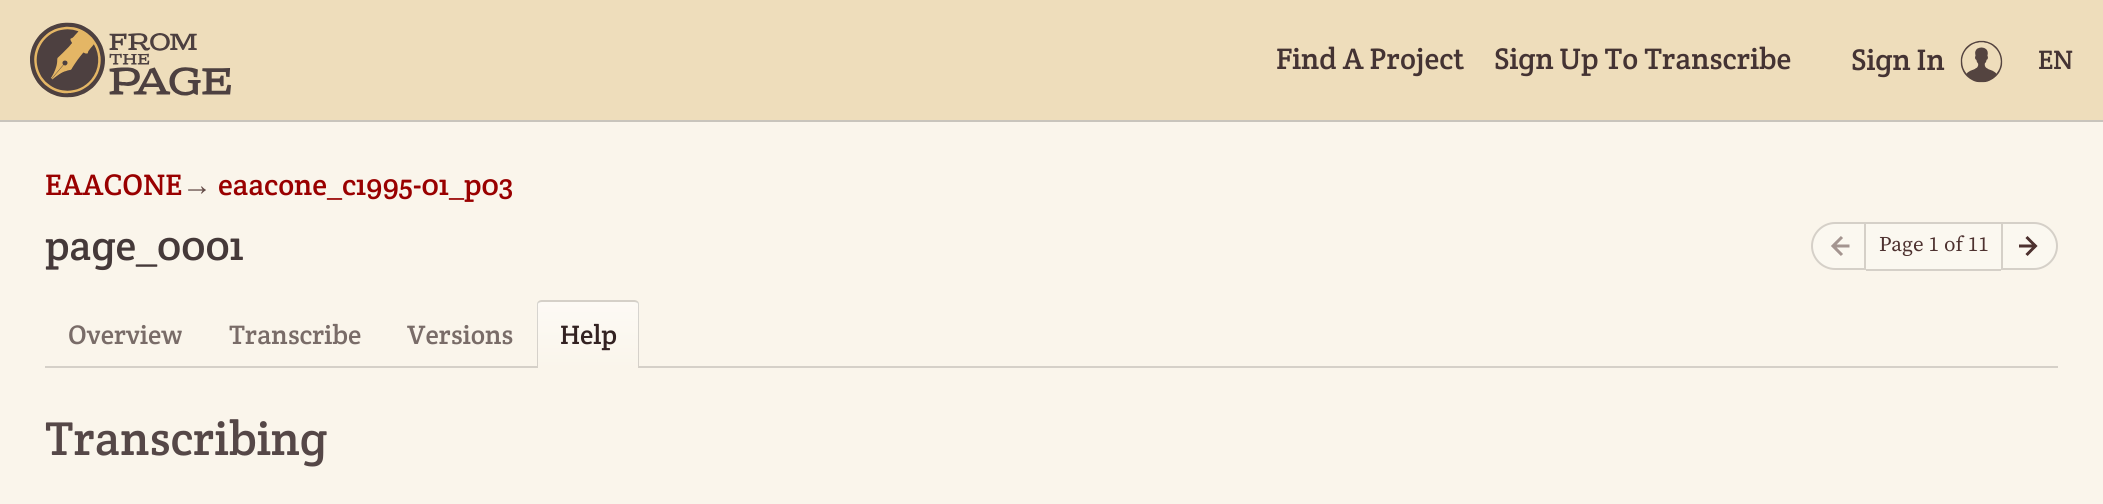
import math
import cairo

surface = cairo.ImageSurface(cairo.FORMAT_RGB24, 2103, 504)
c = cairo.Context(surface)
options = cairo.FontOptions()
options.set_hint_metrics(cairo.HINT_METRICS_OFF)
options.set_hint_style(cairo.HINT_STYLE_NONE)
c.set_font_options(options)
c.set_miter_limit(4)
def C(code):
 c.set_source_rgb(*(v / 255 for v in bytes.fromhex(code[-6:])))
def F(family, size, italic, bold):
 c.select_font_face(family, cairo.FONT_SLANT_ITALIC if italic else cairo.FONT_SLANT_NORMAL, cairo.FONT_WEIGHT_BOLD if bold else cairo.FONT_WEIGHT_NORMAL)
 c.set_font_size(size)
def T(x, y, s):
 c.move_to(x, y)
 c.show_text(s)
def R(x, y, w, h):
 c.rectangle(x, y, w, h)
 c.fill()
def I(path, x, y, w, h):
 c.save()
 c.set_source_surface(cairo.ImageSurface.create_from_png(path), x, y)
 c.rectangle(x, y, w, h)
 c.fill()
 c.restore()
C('faf5eb')
c.paint()
C('c8c4bc')
R(0,120,2103,2)
C('eeddbb')
R(0,0,2103,120)
I('1.png',30,22,201,76)
F('Crete Round',30,0,0)
C('443333')
T(1276,69,'Find A Project')
T(1494,69,'Sign Up To Transcribe')
T(1851,70,'Sign In')
I('2.png',1960,40,43,43)
F('Crete Round',27,0,0)
T(2038,69,'EN')
F('Crete Round',30,0,0)
C('990000')
T(45,195,'EAACONE')
F('Liberation Serif',30,0,0)
C('634a47')
T(182,195,'→')
F('Crete Round',30,0,0)
C('990000')
T(218,195,'eaacone_c1995-01_p03')
F('Crete Round',42,0,0)
C('453939')
T(45,260,'page_0001')
C('fbf8f0')
c.new_path()
c.move_to(1835,223)
c.line_to(1865,223)
c.line_to(1865,269)
c.line_to(1835,269)
c.curve_to(1822.5,269,1812,258.5,1812,246)
c.curve_to(1812,233.5,1822.5,223,1835,223)
c.close_path()
c.fill_preserve()
C('d5d0c8')
c.stroke()
I('3.png',1831,236,19,20)
C('fbf8f0')
R(1866,224,135,45)
C('d5d0c8')
R(1866,222,135,2)
R(1866,269,135,2)
F('Source Serif Pro',21,0,0)
C('4d312f')
T(1879,251,'Page 1 of 11')
C('fbf8f0')
c.new_path()
c.move_to(2002,223)
c.line_to(2034,223)
c.curve_to(2046.5,223,2057,233.5,2057,246)
c.curve_to(2057,258.5,2046.5,269,2034,269)
c.line_to(2002,269)
c.close_path()
c.fill_preserve()
C('d5d0c8')
c.stroke()
I('4.png',2019,236,19,20)
R(45,366,2013,2)
F('Crete Round',27,0,0)
C('796c68')
T(68,344,'Overview')
T(229,344,'Transcribe')
T(407,344,'Versions')
c.save()
c.new_path()
c.move_to(542,300)
c.line_to(634,300)
c.curve_to(637,300,639,302,639,305)
c.line_to(639,368)
c.line_to(537,368)
c.line_to(537,305)
c.curve_to(537,302,539,300,542,300)
c.close_path()
c.clip()
gradient = cairo.LinearGradient(588,302,588,368)
gradient.add_color_stop_rgba(0,0.992,0.98,0.961,1)
gradient.add_color_stop_rgba(1,0.98,0.961,0.922,1)
c.set_source(gradient)
R(537,302,102,66)
c.restore()
c.set_source_rgba(0,0,0,0.15)
c.set_fill_rule(cairo.FILL_RULE_EVEN_ODD)
c.new_path()
c.move_to(542,300)
c.line_to(634,300)
c.curve_to(637,300,639,302,639,304)
c.line_to(639,368)
c.line_to(537,368)
c.line_to(537,304)
c.curve_to(537,302,539,300,542,300)
c.close_path()
c.move_to(542,302)
c.line_to(634,302)
c.curve_to(636,302,638,303,638,304)
c.line_to(638,368)
c.line_to(538,368)
c.line_to(538,304)
c.curve_to(538,303,540,302,542,302)
c.close_path()
c.fill()
C('332222')
T(560,344,'Help')
F('Crete Round',48,0,0)
C('554747')
T(45,455,'Transcribing')
surface.write_to_png('o.png')
